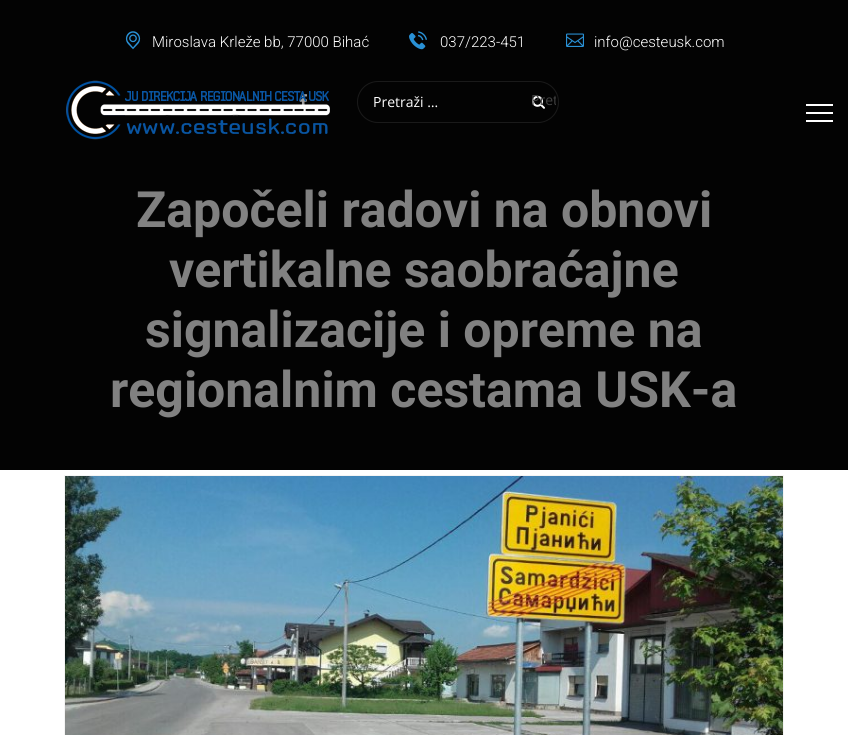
import math
import cairo

surface = cairo.ImageSurface(cairo.FORMAT_RGB24, 848, 735)
c = cairo.Context(surface)
options = cairo.FontOptions()
options.set_hint_metrics(cairo.HINT_METRICS_OFF)
options.set_hint_style(cairo.HINT_STYLE_NONE)
c.set_font_options(options)
c.set_miter_limit(4)
def C(code):
 c.set_source_rgb(*(v / 255 for v in bytes.fromhex(code[-6:])))
def F(family, size, italic, bold):
 c.select_font_face(family, cairo.FONT_SLANT_ITALIC if italic else cairo.FONT_SLANT_NORMAL, cairo.FONT_WEIGHT_BOLD if bold else cairo.FONT_WEIGHT_NORMAL)
 c.set_font_size(size)
def T(x, y, s):
 c.move_to(x, y)
 c.show_text(s)
def R(x, y, w, h):
 c.rectangle(x, y, w, h)
 c.fill()
def Q(x, y, w, h, r):
 c.new_sub_path()
 for i, (u, v) in enumerate([(x + w - r, y + h - r), (x + r, y + h - r), (x + r, y + r), (x + w - r, y + r)]):
  c.arc(u, v, r, i * math.pi / 2, (i + 1) * math.pi / 2)
 c.close_path()
def I(path, x, y, w, h):
 c.save()
 c.set_source_surface(cairo.ImageSurface.create_from_png(path), x, y)
 c.rectangle(x, y, w, h)
 c.fill()
 c.restore()
C('ffffff')
c.paint()
C('030303')
R(0,0,848,470)
I('1.png',125,31,16,19)
F('Roboto Light',15,0,0)
C('ffffff')
T(152,47,'Miroslava Krleže bb, 77000 Bihać')
I('2.png',409,31,18,19)
T(440,47,'037/223-451')
I('3.png',566,33,18,14)
T(594,47,'info@cesteusk.com')
I('4.png',299,94,9,11)
Q(357.5,81.5,201,41,20.5)
C('1a1a1a')
c.set_line_width(1)
c.stroke()
I('5.png',532,95,13,14)
F('Open Sans',14,0,0)
C('ffffff')
T(373,107,'Pretraži …')
c.save()
c.rectangle(525,84,31,31)
c.clip()
C('424242')
T(531,105,'Pret')
c.restore()
I('6.png',66,80,264,60)
R(806,112,27,2)
R(806,104,27,2)
R(806,120,27,2)
F('Roboto',50,0,1)
C('818181')
T(136,227,'Započeli radovi na obnovi')
T(169,287,'vertikalne saobraćajne')
T(145,347,'signalizacije i opreme na')
T(110,407,'regionalnim cestama USK-a')
c.rectangle(64.5,475.5,719,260)
C('f4f4f4')
c.stroke()
I('7.png',65,476,718,259)
surface.write_to_png('o.png')
